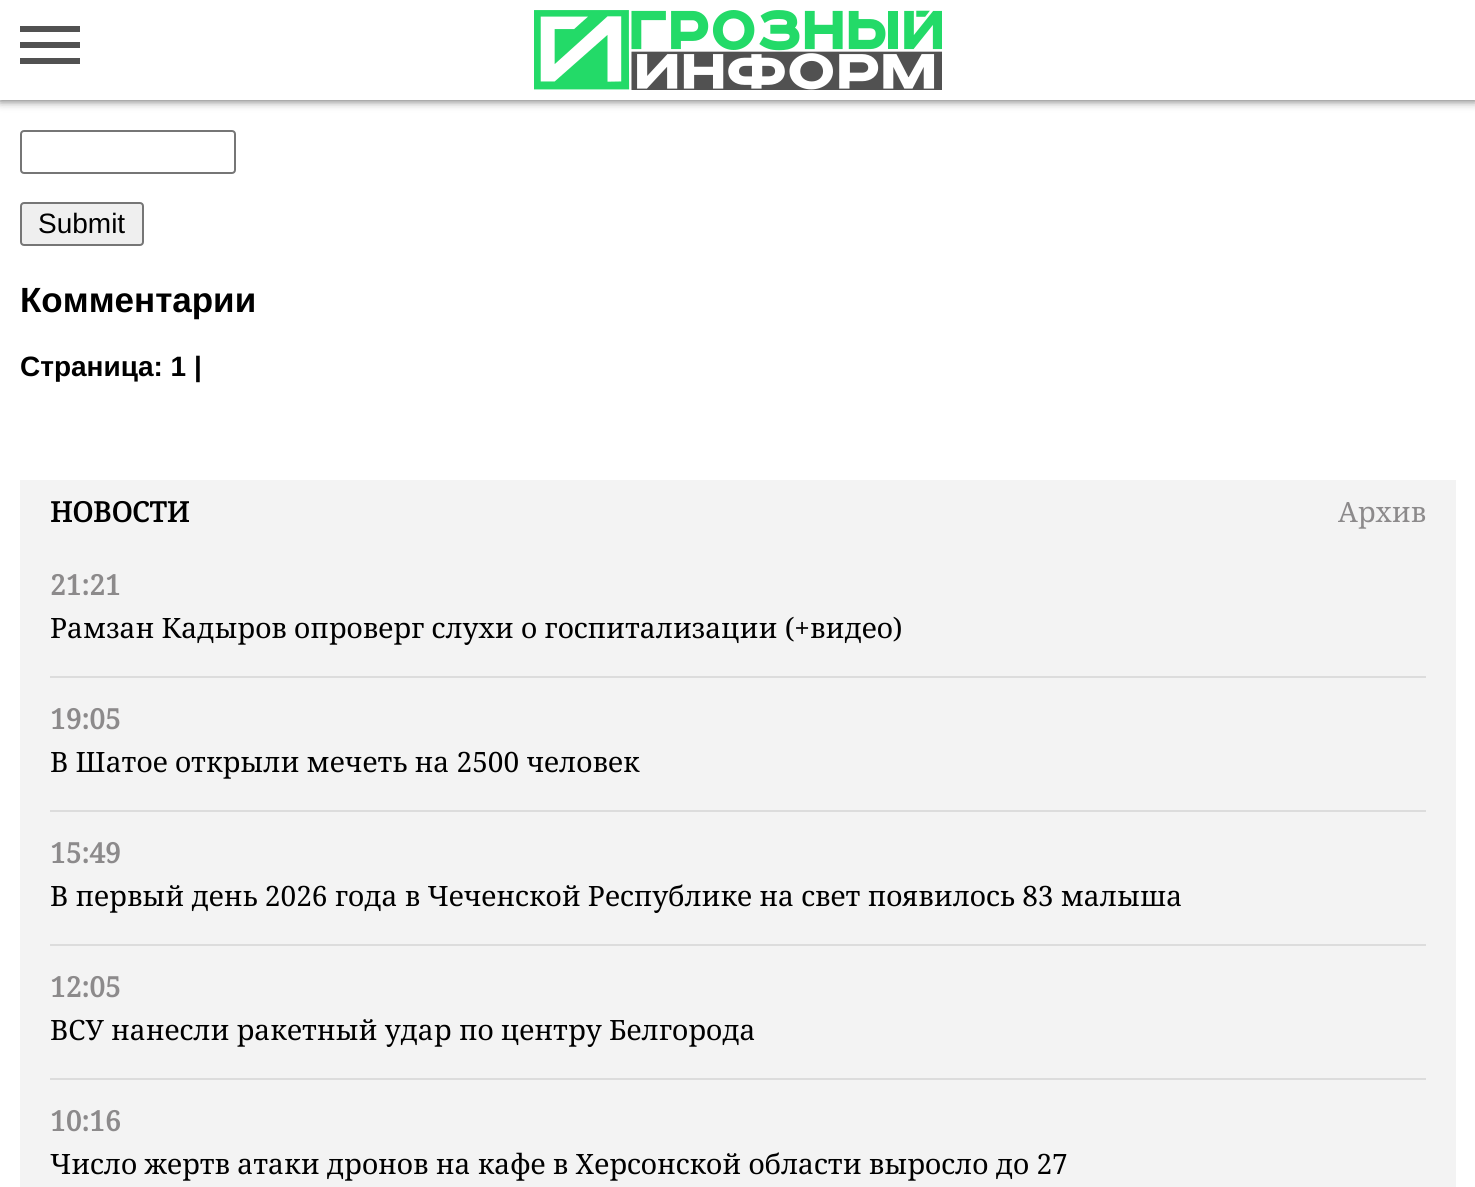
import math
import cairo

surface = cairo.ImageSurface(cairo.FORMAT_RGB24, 1475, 1187)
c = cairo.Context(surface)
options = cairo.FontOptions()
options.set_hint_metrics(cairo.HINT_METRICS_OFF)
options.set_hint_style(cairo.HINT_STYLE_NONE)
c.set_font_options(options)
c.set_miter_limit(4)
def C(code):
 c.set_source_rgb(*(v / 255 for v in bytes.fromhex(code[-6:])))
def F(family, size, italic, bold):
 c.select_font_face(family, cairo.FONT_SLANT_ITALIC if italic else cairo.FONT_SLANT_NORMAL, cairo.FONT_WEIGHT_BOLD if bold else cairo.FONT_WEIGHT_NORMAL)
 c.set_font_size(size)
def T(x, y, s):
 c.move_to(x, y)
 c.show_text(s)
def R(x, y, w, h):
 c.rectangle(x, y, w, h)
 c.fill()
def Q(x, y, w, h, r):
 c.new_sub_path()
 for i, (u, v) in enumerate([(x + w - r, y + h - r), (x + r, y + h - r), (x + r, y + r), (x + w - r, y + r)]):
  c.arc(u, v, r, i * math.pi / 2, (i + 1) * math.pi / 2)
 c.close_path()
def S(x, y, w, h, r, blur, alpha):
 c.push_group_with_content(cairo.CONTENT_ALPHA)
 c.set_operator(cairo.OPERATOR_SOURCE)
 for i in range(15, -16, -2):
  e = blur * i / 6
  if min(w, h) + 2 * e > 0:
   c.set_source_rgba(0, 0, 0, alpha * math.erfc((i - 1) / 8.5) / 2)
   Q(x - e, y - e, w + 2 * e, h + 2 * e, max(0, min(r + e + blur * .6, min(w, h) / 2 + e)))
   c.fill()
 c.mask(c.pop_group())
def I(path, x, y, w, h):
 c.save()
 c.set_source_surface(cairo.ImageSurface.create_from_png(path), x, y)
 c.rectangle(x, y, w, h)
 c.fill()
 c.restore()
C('ffffff')
c.paint()
C('000000')
S(0,0,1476,100,0,5,.7)
C('ffffff')
R(0,0,1475,100)
C('515151')
R(20,42,60,6)
R(20,26,60,6)
R(20,58,60,6)
I('1.png',534,10,408,80)
Q(21,131,214,42,3)
C('767676')
c.stroke()
C('efefef')
Q(21,203,122,42,3)
c.fill_preserve()
C('767676')
c.stroke()
F('Liberation Sans',28,0,0)
C('000000')
T(38,233,'Submit')
F('Liberation Sans',35,0,1)
T(20,312,'Комментарии')
F('Liberation Sans',28,0,1)
T(20,376,'Страница: 1 |')
C('f3f3f3')
R(20,480,1436,707)
F('Noto Serif',28,0,1)
C('000000')
T(50,522,'НОВОСТИ')
F('Noto Serif',28,0,0)
C('8c8a8b')
T(1338,522,'Архив')
C('dcdcdc')
R(50,676,1376,2)
F('Noto Serif',28,0,1)
C('8c8a8b')
T(50,595,'21:21')
F('Noto Serif',28,0,0)
C('000000')
T(50,638,'Рамзан Кадыров опроверг слухи о госпитализации (+видео)')
C('dcdcdc')
R(50,810,1376,2)
F('Noto Serif',28,0,1)
C('8c8a8b')
T(50,729,'19:05')
F('Noto Serif',28,0,0)
C('000000')
T(50,772,'В Шатое открыли мечеть на 2500 человек')
C('dcdcdc')
R(50,944,1376,2)
F('Noto Serif',28,0,1)
C('8c8a8b')
T(50,863,'15:49')
F('Noto Serif',28,0,0)
C('000000')
T(50,906,'В первый день 2026 года в Чеченской Республике на свет появилось 83 малыша')
C('dcdcdc')
R(50,1078,1376,2)
F('Noto Serif',28,0,1)
C('8c8a8b')
T(50,997,'12:05')
F('Noto Serif',28,0,0)
C('000000')
T(50,1040,'ВСУ нанесли ракетный удар по центру Белгорода')
F('Noto Serif',28,0,1)
C('8c8a8b')
T(50,1131,'10:16')
F('Noto Serif',28,0,0)
C('000000')
T(50,1174,'Число жертв атаки дронов на кафе в Херсонской области выросло до 27')
surface.write_to_png('o.png')
